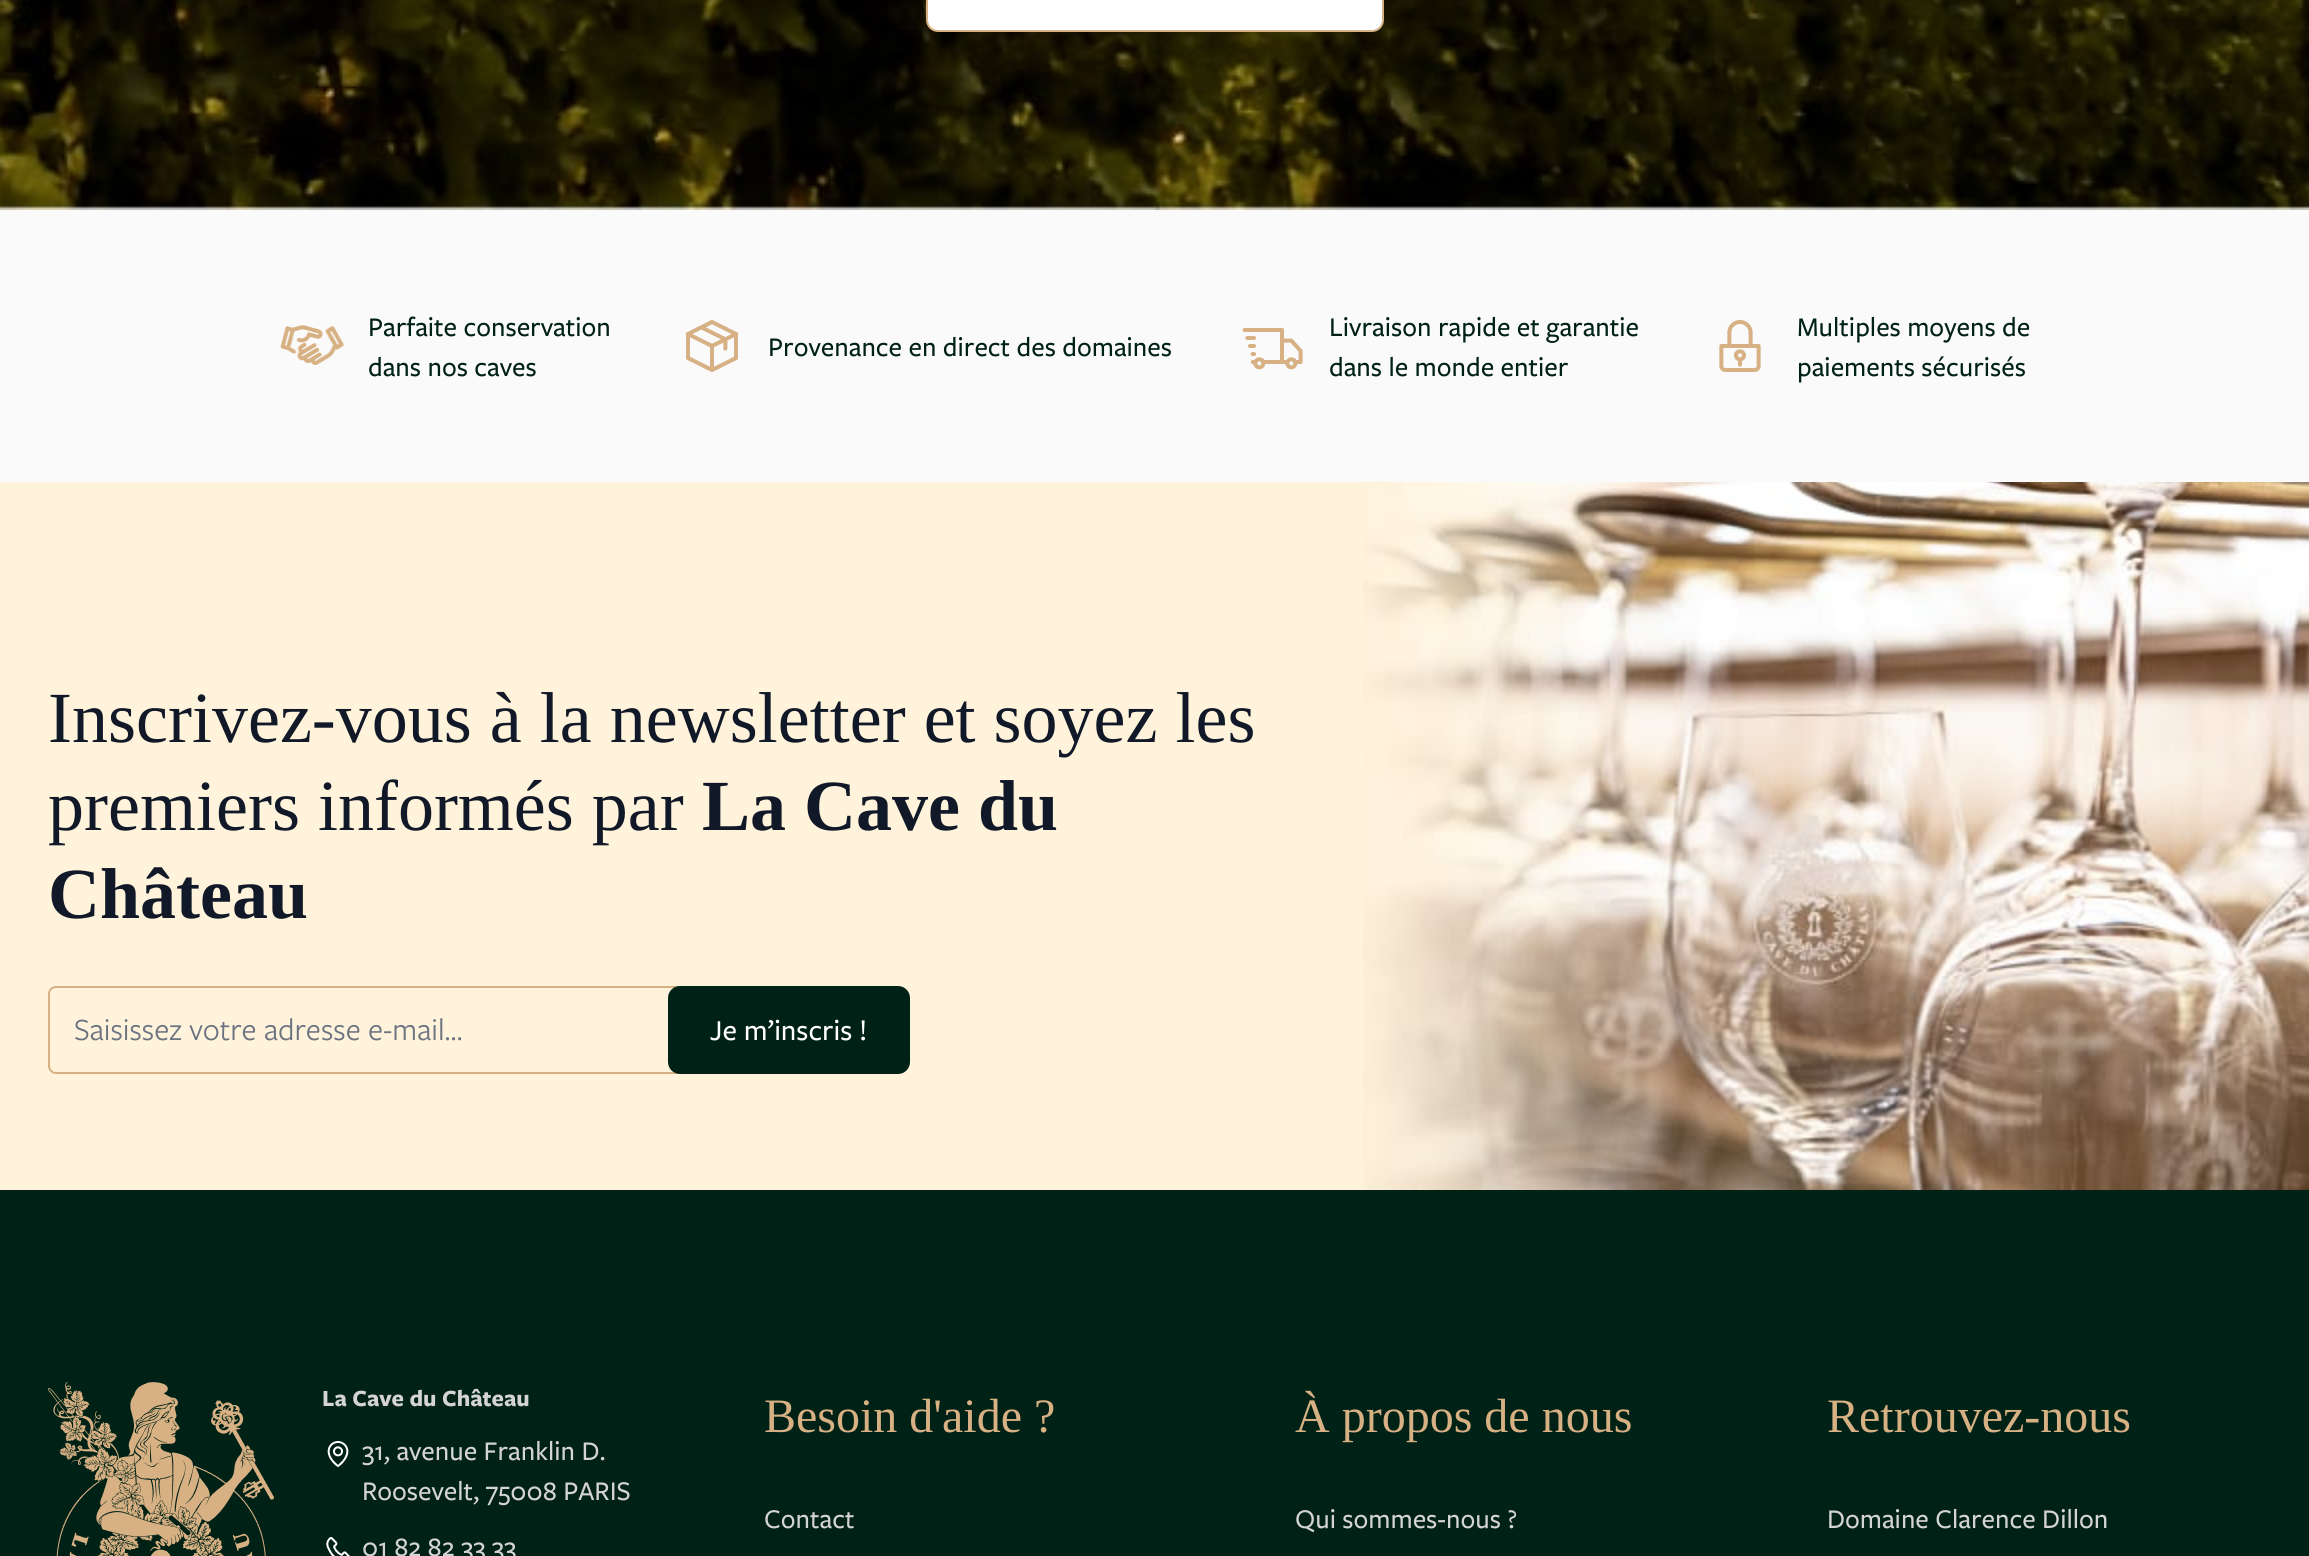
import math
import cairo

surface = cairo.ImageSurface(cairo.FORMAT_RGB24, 2309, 1556)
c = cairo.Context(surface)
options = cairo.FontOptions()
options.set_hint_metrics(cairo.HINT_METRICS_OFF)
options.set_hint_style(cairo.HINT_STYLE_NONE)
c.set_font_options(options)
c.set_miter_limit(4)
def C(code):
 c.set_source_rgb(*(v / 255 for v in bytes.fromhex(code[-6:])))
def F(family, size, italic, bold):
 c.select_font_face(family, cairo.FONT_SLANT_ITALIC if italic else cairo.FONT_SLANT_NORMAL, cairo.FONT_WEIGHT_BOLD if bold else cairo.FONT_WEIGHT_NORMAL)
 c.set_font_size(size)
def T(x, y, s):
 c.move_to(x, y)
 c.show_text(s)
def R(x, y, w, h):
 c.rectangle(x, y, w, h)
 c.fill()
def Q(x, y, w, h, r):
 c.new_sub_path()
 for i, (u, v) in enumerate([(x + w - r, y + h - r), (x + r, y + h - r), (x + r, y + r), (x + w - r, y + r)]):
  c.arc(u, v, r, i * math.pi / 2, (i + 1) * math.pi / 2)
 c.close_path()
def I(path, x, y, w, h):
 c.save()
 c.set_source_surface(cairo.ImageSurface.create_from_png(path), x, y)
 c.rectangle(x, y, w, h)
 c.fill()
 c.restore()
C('ffffff')
c.paint()
I('1.png',0,0,2309,210)
C('ffffff')
Q(927,-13,456,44,11)
c.fill_preserve()
C('d7b183')
c.stroke()
C('fafafa')
R(0,210,2309,272)
I('2.png',280,325,64,40)
F('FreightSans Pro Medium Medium',28,0,0)
C('002115')
T(368,336,'Parfaite conservation')
T(368,376,'dans nos caves')
I('3.png',686,319,52,54)
T(768,356,'Provenance en direct des domaines')
I('4.png',1242,328,61,42)
T(1329,336,'Livraison rapide et garantie')
T(1329,376,'dans le monde entier')
I('5.png',1719,320,42,52)
T(1797,336,'Multiples moyens de')
T(1797,376,'paiements sécurisés')
C('fff3db')
R(0,482,1363,708)
F('Liberation Serif',72,0,0)
C('111827')
T(48,742,'Inscrivez-vous à la newsletter et soyez les')
T(48,830,'premiers informés par')
F('Liberation Serif',72,0,1)
T(702,830,'La Cave du')
T(48,918,'Château')
Q(49,987,638,86,7)
C('d7b183')
c.stroke()
F('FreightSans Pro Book',32,0,0)
C('6b7280')
T(74,1040,'Saisissez votre adresse e-mail…')
C('002115')
Q(669,987,240,86,11)
c.fill_preserve()
c.stroke()
F('FreightSans Pro Medium Medium',30,0,0)
C('ffffff')
T(710,1040,'Je m’inscris !')
I('6.png',1363,482,946,708)
C('002115')
R(0,1190,2309,366)
I('7.png',48,1382,226,174)
F('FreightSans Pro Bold',24,0,1)
C('d4d4d4')
T(322,1406,'La Cave du Château')
I('8.png',327,1441,22,27)
F('FreightSans Pro Medium Medium',28,0,0)
T(362,1460,'31, avenue Franklin D.')
T(362,1500,'Roosevelt, 75008 PARIS')
I('9.png',326,1537,24,19)
T(362,1556,'01 82 82 33 33')
F('Liberation Serif',48,0,0)
C('d7b183')
T(764,1432,'Besoin d\'aide ?')
F('FreightSans Pro Medium Medium',28,0,0)
C('d4d4d4')
T(764,1528,'Contact')
F('Liberation Serif',48,0,0)
C('d7b183')
T(1295,1432,'À propos de nous')
F('FreightSans Pro Medium Medium',28,0,0)
C('d4d4d4')
T(1295,1528,'Qui sommes-nous ?')
F('Liberation Serif',48,0,0)
C('d7b183')
T(1827,1432,'Retrouvez-nous')
F('FreightSans Pro Medium Medium',28,0,0)
C('d4d4d4')
T(1827,1528,'Domaine Clarence Dillon')
surface.write_to_png('o.png')
